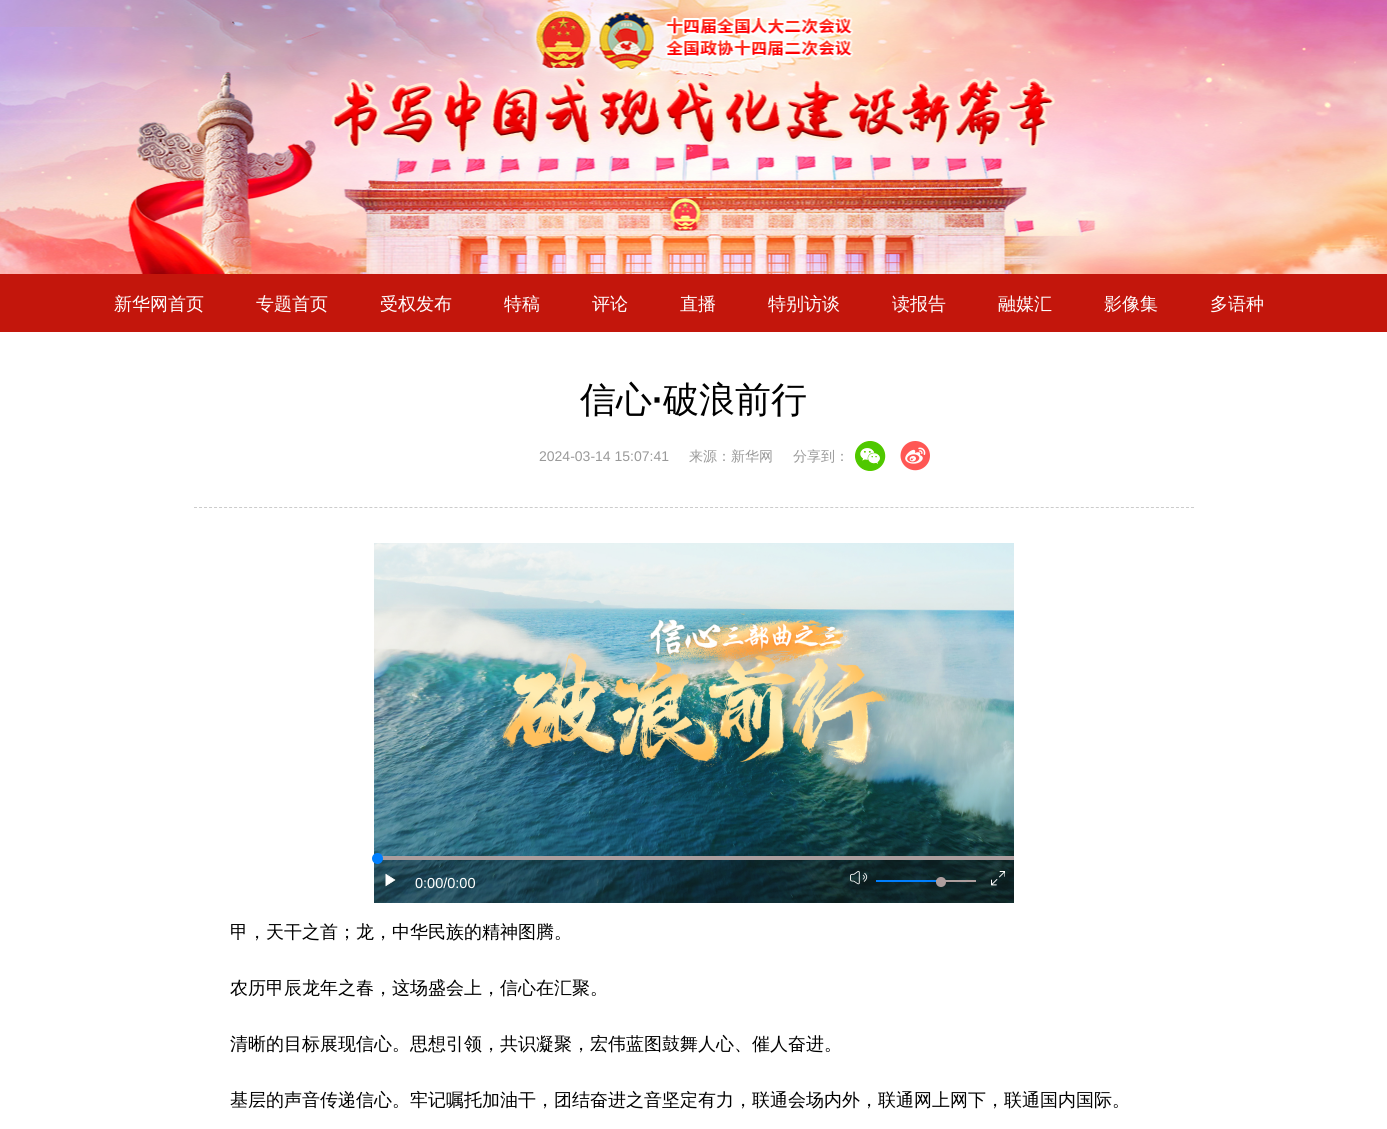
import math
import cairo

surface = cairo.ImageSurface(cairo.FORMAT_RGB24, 1387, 1129)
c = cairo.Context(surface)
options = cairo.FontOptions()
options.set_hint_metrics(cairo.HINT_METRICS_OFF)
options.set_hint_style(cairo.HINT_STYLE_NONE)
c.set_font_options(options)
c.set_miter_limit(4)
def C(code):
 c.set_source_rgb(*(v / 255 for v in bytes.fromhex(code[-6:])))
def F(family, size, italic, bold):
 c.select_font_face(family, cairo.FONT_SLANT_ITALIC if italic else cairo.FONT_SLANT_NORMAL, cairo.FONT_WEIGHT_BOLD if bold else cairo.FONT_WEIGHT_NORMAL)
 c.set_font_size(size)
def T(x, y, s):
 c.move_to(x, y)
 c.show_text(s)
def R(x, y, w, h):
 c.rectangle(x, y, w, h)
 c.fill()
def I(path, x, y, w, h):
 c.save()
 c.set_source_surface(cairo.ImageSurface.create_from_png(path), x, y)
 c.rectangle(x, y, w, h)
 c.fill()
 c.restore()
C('ffffff')
c.paint()
I('1.png',0,0,1387,274)
C('c3160c')
R(0,274,1387,58)
F('WenQuanYi Zen Hei Medium',18,0,0)
C('ffffff')
T(114,310,'新华网首页')
T(256,310,'专题首页')
T(380,310,'受权发布')
T(504,310,'特稿')
T(592,310,'评论')
T(680,310,'直播')
T(768,310,'特别访谈')
T(892,310,'读报告')
T(998,310,'融媒汇')
T(1104,310,'影像集')
T(1210,310,'多语种')
c.new_path()
c.move_to(194,507.5)
c.line_to(1194,507.5)
C('cccccc')
c.set_line_width(1)
c.set_dash([3,2.01])
c.stroke()
F('WenQuanYi Zen Hei Medium',36,0,0)
C('000000')
T(580,412,'信心')
F('Liberation Sans',36,0,1)
T(652,412,'·')
F('WenQuanYi Zen Hei Medium',36,0,0)
T(663,412,'破浪前行')
F('Liberation Sans',14,0,0)
C('999999')
T(539,461,'2024-03-14 15:07:41')
F('WenQuanYi Zen Hei Medium',14,0,0)
T(689,461,'来源：新华网')
T(793,461,'分享到：')
I('2.png',855,441,31,30)
I('3.png',900,441,30,30)
I('4.png',374,543,640,360)
c.set_source_rgba(0.063,0.063,0.063,0.33)
R(374,860,640,43)
C('ad9e9e')
R(374,856,640,4)
C('007fff')
c.arc(377.5,858.5,5.5,0,2 * math.pi)
c.fill()
I('5.png',385,873,11,14)
F('Liberation Sans',14.5,0,0)
C('ffffff')
T(415,888,'0:00/0:00')
I('6.png',850,871,18,14)
C('ad9e9e')
R(936,880,40,2)
C('007fff')
R(876,880,60,2)
C('ad9e9e')
c.arc(941,882,5,0,2 * math.pi)
c.fill()
I('7.png',991,871,14,15)
F('WenQuanYi Zen Hei Medium',18,0,0)
C('000000')
T(230,938,'甲，天干之首；龙，中华民族的精神图腾。')
T(230,994,'农历甲辰龙年之春，这场盛会上，信心在汇聚。')
T(230,1050,'清晰的目标展现信心。思想引领，共识凝聚，宏伟蓝图鼓舞人心、催人奋进。')
T(230,1106,'基层的声音传递信心。牢记嘱托加油干，团结奋进之音坚定有力，联通会场内外，联通网上网下，联通国内国际。')
surface.write_to_png('o.png')
